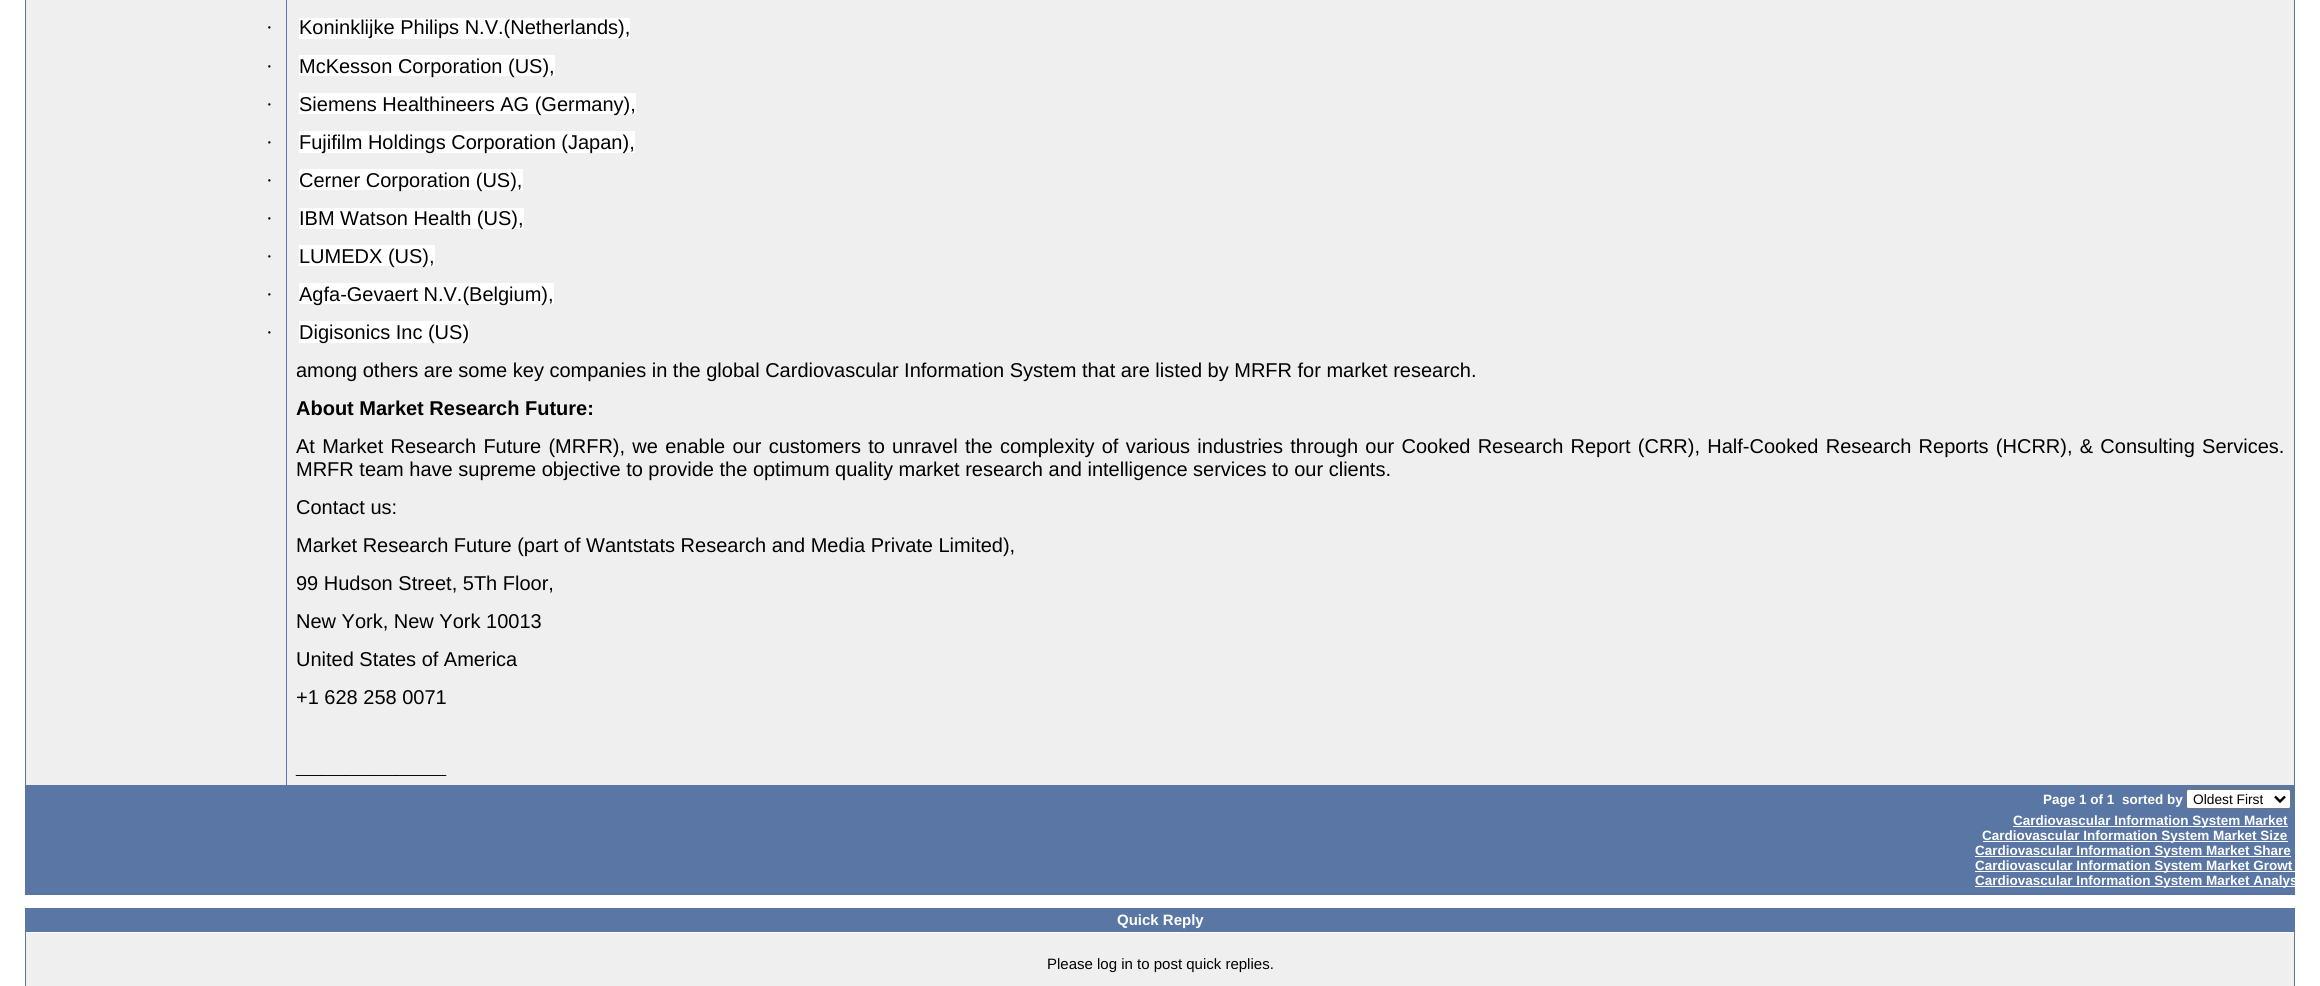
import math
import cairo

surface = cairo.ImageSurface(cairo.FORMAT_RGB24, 2320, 986)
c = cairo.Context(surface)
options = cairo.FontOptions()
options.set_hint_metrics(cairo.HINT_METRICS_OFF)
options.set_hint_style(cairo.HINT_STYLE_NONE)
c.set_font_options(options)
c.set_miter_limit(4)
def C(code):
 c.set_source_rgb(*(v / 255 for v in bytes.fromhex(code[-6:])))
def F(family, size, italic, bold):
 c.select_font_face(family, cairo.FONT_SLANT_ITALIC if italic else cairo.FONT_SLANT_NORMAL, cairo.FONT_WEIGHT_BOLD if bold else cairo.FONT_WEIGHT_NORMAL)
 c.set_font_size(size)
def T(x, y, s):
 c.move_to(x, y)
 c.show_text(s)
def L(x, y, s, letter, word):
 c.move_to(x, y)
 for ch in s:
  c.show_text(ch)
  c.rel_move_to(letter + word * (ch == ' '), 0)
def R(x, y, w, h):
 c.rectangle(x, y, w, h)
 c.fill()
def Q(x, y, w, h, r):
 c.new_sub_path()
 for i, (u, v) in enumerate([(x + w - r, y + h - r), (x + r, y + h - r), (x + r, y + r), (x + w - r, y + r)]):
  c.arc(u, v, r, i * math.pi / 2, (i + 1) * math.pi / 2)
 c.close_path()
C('ffffff')
c.paint()
C('5a76a5')
R(2294,0,1,895)
R(25,894,2270,1)
R(25,0,1,895)
C('efefef')
R(26,0,2268,785)
C('5a76a5')
R(25,785,2270,1)
R(286,0,1,786)
F('Liberation Serif',20,0,0)
C('000000')
T(266,34,'·')
C('ffffff')
R(299,18,331,21)
F('Liberation Sans',20,0,0)
C('000000')
T(299,34,'Koninklijke Philips N.V.(Netherlands),')
F('Liberation Serif',20,0,0)
T(266,73,'·')
C('ffffff')
R(299,55,256,21)
F('Liberation Sans',20,0,0)
C('000000')
T(299,73,'McKesson Corporation (US),')
F('Liberation Serif',20,0,0)
T(266,111,'·')
C('ffffff')
R(299,93,337,21)
F('Liberation Sans',20,0,0)
C('000000')
T(299,111,'Siemens Healthineers AG (Germany),')
F('Liberation Serif',20,0,0)
T(266,149,'·')
C('ffffff')
R(299,131,336,22)
F('Liberation Sans',20,0,0)
C('000000')
T(299,149,'Fujifilm Holdings Corporation (Japan),')
F('Liberation Serif',20,0,0)
T(266,187,'·')
C('ffffff')
R(299,169,224,21)
F('Liberation Sans',20,0,0)
C('000000')
T(299,187,'Cerner Corporation (US),')
F('Liberation Serif',20,0,0)
T(266,225,'·')
C('ffffff')
R(299,208,225,21)
F('Liberation Sans',20,0,0)
C('000000')
T(299,225,'IBM Watson Health (US),')
F('Liberation Serif',20,0,0)
T(266,263,'·')
C('ffffff')
R(299,245,136,21)
F('Liberation Sans',20,0,0)
C('000000')
T(299,263,'LUMEDX (US),')
F('Liberation Serif',20,0,0)
T(266,301,'·')
C('ffffff')
R(299,283,255,21)
F('Liberation Sans',20,0,0)
C('000000')
T(299,301,'Agfa-Gevaert N.V.(Belgium),')
F('Liberation Serif',20,0,0)
T(266,339,'·')
C('ffffff')
R(299,321,170,22)
F('Liberation Sans',20,0,0)
C('000000')
T(299,339,'Digisonics Inc (US)')
T(296,377,'among others are some key companies in the global Cardiovascular Information System that are listed by MRFR for market research.')
F('Liberation Sans',20,0,1)
T(296,415,'About Market Research Future:')
F('Liberation Sans',20,0,0)
L(296,453,'At Market Research Future (MRFR), we enable our customers to unravel the complexity of various industries through our Cooked Research Report (CRR), Half-Cooked Research Reports (HCRR), & Consulting Services.',0,1.7)
T(296,476,'MRFR team have supreme objective to provide the optimum quality market research and intelligence services to our clients.')
T(296,514,'Contact us:')
T(296,552,'Market Research Future (part of Wantstats Research and Media Private Limited),')
T(296,590,'99 Hudson Street, 5Th Floor,')
T(296,628,'New York, New York 10013')
T(296,666,'United States of America')
T(296,704,'+1 628 258 0071')
F('Liberation Sans',15,0,0)
T(296,773,'__________________')
C('5a76a5')
R(26,786,2268,108)
F('Liberation Sans',13.5,0,1)
C('ffffff')
T(2043,804,'Page 1 of 1')
T(2122,804,'sorted by')
Q(2186.5,789.5,104,19,2)
c.fill_preserve()
C('767676')
c.set_line_width(1)
c.stroke()
c.new_path()
c.move_to(2275,796.5)
c.line_to(2280,801.5)
c.line_to(2285,796.5)
C('000000')
c.set_line_width(2.5)
c.stroke()
F('Liberation Sans',13.75,0,0)
T(2193,804,'Oldest First')
C('ffffff')
R(2013,826,275,1)
F('Liberation Sans',13.5,0,1)
T(2013,825,'Cardiovascular Information System Market')
R(1983,841,305,1)
T(1982,840,'Cardiovascular Information System Market Size')
R(1975,856,316,1)
T(1975,855,'Cardiovascular Information System Market Share')
R(1975,871,325,1)
T(1975,870,'Cardiovascular Information System Market Growt')
R(1975,886,320,1)
T(1975,885,'Cardiovascular Information System Market Analys')
C('5a76a5')
R(25,908,2270,1)
R(2294,908,1,78)
R(25,908,1,78)
R(26,909,2268,22)
R(25,931,2270,1)
F('Liberation Sans',15,0,1)
C('ffffff')
T(1117,925,'Quick Reply')
C('efefef')
R(26,933,2268,53)
F('Liberation Sans',15,0,0)
C('000000')
T(1047,969,'Please log in to post quick replies.')
surface.write_to_png('o.png')
